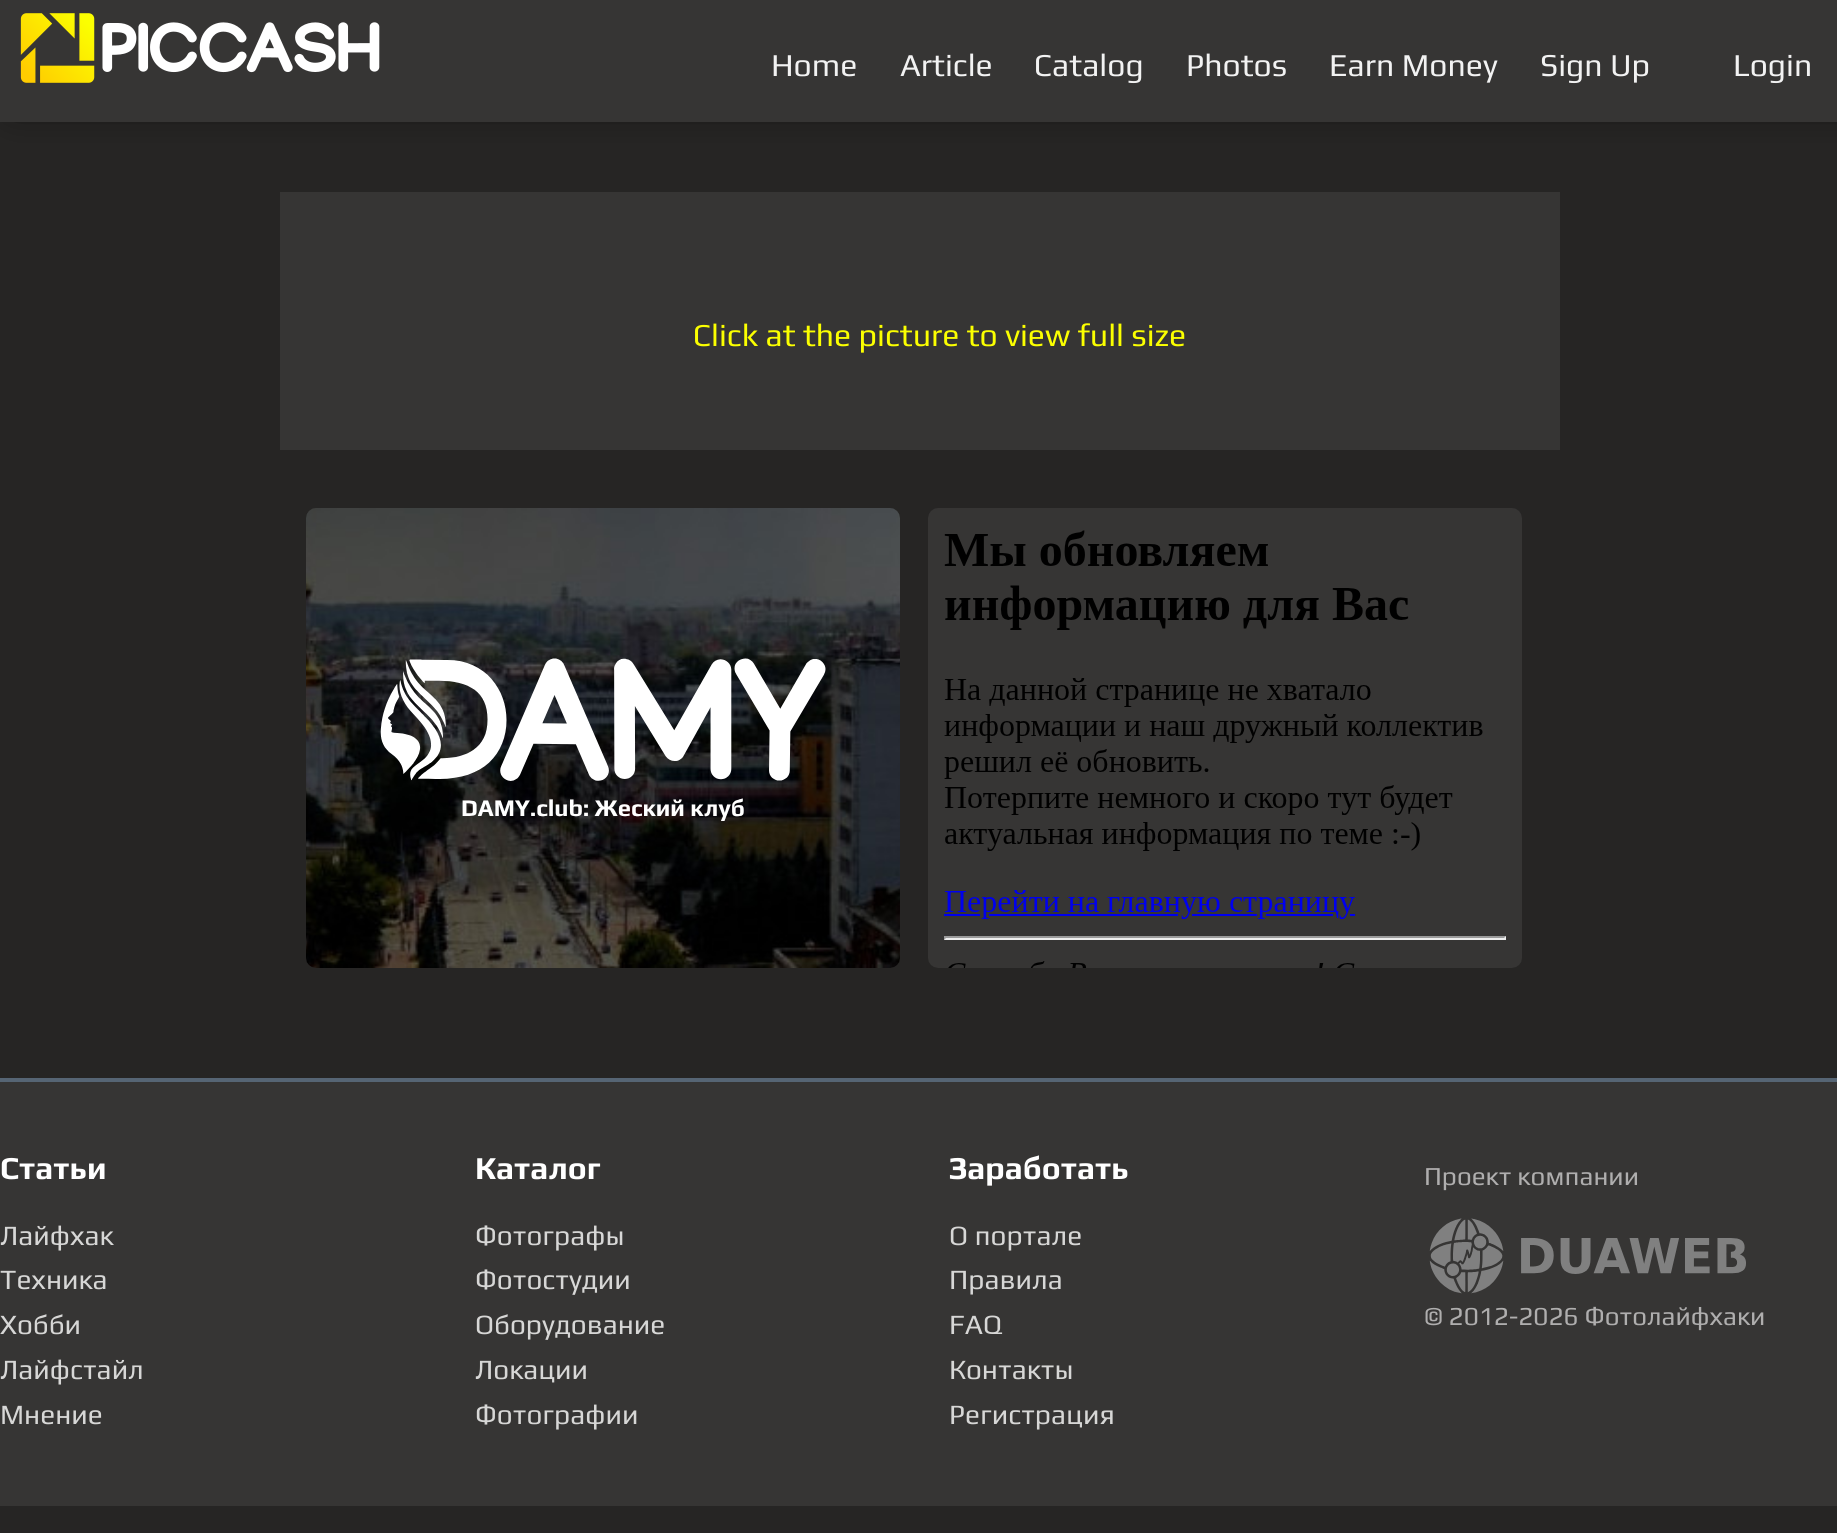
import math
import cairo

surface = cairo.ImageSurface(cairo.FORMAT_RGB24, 1837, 1533)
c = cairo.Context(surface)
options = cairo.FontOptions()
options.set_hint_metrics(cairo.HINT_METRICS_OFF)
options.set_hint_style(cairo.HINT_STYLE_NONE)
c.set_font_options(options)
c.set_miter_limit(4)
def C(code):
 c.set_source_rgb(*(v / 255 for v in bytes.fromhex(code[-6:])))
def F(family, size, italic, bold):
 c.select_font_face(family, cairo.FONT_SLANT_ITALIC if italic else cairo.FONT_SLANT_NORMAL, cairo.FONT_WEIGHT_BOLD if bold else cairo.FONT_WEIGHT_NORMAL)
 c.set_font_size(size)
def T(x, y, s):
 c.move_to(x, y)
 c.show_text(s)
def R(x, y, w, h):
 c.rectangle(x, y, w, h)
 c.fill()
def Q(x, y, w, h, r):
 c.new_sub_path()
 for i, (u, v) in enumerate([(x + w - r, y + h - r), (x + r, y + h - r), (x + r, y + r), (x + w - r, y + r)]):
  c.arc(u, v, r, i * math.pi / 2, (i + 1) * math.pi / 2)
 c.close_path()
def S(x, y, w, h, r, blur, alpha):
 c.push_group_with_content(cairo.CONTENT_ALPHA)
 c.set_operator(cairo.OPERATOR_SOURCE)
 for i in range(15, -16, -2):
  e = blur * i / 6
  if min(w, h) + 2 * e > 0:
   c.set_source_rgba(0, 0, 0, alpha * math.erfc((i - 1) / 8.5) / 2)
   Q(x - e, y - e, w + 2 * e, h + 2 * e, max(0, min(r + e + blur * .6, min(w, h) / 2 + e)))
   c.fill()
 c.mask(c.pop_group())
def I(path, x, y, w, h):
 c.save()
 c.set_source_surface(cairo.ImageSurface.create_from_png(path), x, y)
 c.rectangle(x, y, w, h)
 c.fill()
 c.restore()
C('262524')
c.paint()
C('000000')
S(14,-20,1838,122,0,19,1)
C('363534')
R(0,0,1837,122)
I('1.png',20,13,360,70)
F('Play',32,0,0)
C('f2f2f2')
T(771,76,'Home')
T(900,76,'Article')
T(1034,76,'Catalog')
T(1186,76,'Photos')
T(1329,76,'Earn Money')
T(1540,76,'Sign Up')
T(1733,76,'Login')
C('363534')
R(280,192,1280,258)
C('fbff00')
T(693,346,'Click at the picture to view full size')
I('2.png',306,508,1216,460)
C('363534')
R(0,1082,1837,424)
C('566574')
R(0,1078,1837,4)
F('Play',32,0,1)
C('ffffff')
T(0,1179,'Статьи')
F('Play',28,0,0)
C('d7d7d6')
T(0,1245,'Лайфхак')
T(0,1289,'Техника')
T(0,1334,'Хобби')
T(0,1379,'Лайфстайл')
T(0,1424,'Мнение')
F('Play',32,0,1)
C('ffffff')
T(475,1179,'Каталог')
F('Play',28,0,0)
C('d7d7d6')
T(475,1245,'Фотографы')
T(475,1289,'Фотостудии')
T(475,1334,'Оборудование')
T(475,1379,'Локации')
T(475,1424,'Фотографии')
F('Play',32,0,1)
C('ffffff')
T(949,1179,'Заработать')
F('Play',28,0,0)
C('d7d7d6')
T(949,1245,'О портале')
T(949,1289,'Правила')
T(949,1334,'FAQ')
T(949,1379,'Контакты')
T(949,1424,'Регистрация')
F('Play',26,0,0)
C('afaeae')
T(1424,1185,'Проект компании')
I('3.png',1429,1218,317,76)
T(1424,1325,'© 2012-2026 Фотолайфхаки')
surface.write_to_png('o.png')
